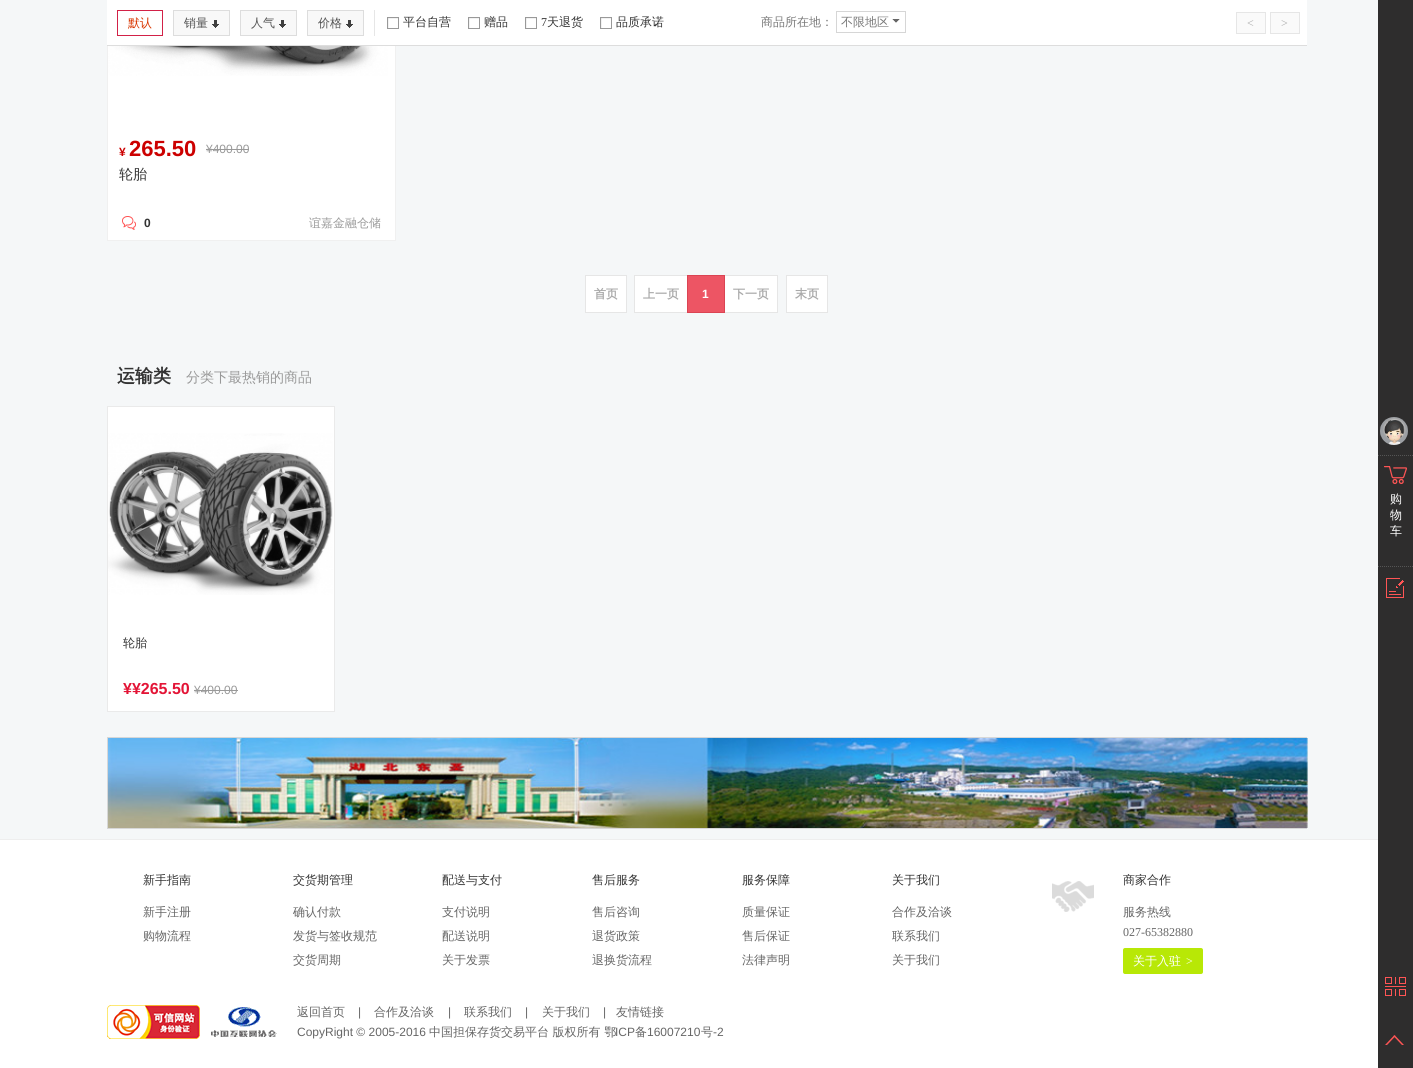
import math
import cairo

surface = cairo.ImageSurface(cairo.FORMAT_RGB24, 1413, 1068)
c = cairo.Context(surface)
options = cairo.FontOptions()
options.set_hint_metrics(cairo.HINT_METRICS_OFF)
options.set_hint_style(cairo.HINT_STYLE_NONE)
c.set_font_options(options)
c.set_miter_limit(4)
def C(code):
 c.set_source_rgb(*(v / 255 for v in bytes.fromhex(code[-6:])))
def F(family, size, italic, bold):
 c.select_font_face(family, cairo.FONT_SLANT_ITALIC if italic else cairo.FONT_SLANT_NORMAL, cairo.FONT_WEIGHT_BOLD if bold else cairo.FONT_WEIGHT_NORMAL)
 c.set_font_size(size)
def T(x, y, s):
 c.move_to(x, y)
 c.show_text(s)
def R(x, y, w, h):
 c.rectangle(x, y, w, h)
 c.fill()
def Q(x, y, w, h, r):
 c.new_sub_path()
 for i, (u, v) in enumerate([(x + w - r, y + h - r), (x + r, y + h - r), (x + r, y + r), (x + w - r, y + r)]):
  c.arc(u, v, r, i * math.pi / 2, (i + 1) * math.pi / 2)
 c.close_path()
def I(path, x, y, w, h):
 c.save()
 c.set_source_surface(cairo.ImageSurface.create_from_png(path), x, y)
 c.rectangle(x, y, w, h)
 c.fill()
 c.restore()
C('f5f7f8')
c.paint()
C('ffffff')
R(108,46,287,194)
c.rectangle(107.5,-.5,288,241)
C('f0f0f0')
c.set_line_width(1)
c.stroke()
C('ffffff')
R(107,0,1200,45)
C('dddddd')
R(107,45,1200,1)
C('e6e6e6')
R(374,10,1,26)
c.rectangle(117.5,10.5,45,25)
C('d22147')
c.stroke()
F('WenQuanYi Zen Hei Medium',12,0,0)
C('d93600')
T(128,27,'默认')
C('f8f8f8')
c.rectangle(173.5,10.5,56,25)
c.fill_preserve()
C('dddddd')
c.stroke()
C('555555')
T(184,27,'销量')
I('1.png',212,20,7,8)
C('f8f8f8')
c.rectangle(240.5,10.5,56,25)
c.fill_preserve()
C('dddddd')
c.stroke()
C('555555')
T(251,27,'人气')
I('1.png',279,20,7,8)
C('f8f8f8')
c.rectangle(307.5,10.5,56,25)
c.fill_preserve()
C('dddddd')
c.stroke()
C('555555')
T(318,27,'价格')
I('1.png',346,20,7,8)
I('2.png',387,17,12,12)
C('333333')
T(403,26,'平台自营')
I('2.png',468,17,12,12)
T(484,26,'赠品')
I('2.png',525,17,12,12)
F('Liberation Serif',12,0,0)
T(541,26,'7')
F('WenQuanYi Zen Hei Medium',12,0,0)
T(547,26,'天退货')
I('2.png',600,17,12,12)
T(616,26,'品质承诺')
C('777777')
T(761,26,'商品所在地：')
c.rectangle(836.5,11.5,69,21)
C('d6d6d6')
c.stroke()
C('777777')
T(841,26,'不限地区')
C('666666')
c.new_path()
c.move_to(892,19)
c.line_to(900,19)
c.line_to(896,23)
c.close_path()
c.fill()
C('ffffff')
c.new_path()
c.move_to(900,19)
c.line_to(900,27)
c.line_to(896,23)
c.close_path()
c.move_to(892,27)
c.line_to(892,19)
c.line_to(896,23)
c.close_path()
c.fill()
C('fafafa')
c.rectangle(1236.5,12.5,29,21)
c.fill_preserve()
C('e6e6e6')
c.stroke()
F('Liberation Serif',12,0,0)
C('aaaaaa')
T(1247,27,'<')
C('fafafa')
c.rectangle(1270.5,12.5,29,21)
c.fill_preserve()
C('e6e6e6')
c.stroke()
C('aaaaaa')
T(1281,27,'>')
I('3.png',108,46,280,30)
F('Liberation Sans',12,0,1)
C('cc0000')
T(119,156,'¥')
F('Liberation Sans',22,0,1)
T(129,156,'265.50')
F('Liberation Sans',12,0,0)
C('999999')
T(206,153,'¥400.00')
R(206,149,43,1)
c.save()
c.rectangle(119,164,266,40)
c.clip()
F('WenQuanYi Zen Hei Medium',14,0,0)
C('333333')
T(119,179,'轮胎')
c.restore()
I('4.png',122,216,14,14)
F('Liberation Sans',12,0,1)
C('333333')
T(144,227,'0')
F('WenQuanYi Zen Hei Medium',12,0,0)
C('999999')
T(309,227,'谊嘉金融仓储')
C('ffffff')
c.rectangle(585.5,275.5,41,37)
c.fill_preserve()
C('e6e6e6')
c.stroke()
F('WenQuanYi Zen Hei',12,0,1)
C('aaaaaa')
T(594,298,'首页')
C('ffffff')
c.rectangle(634.5,275.5,53,37)
c.fill_preserve()
C('e6e6e6')
c.stroke()
C('aaaaaa')
T(643,298,'上一页')
C('ffffff')
c.rectangle(724.5,275.5,53,37)
c.fill_preserve()
C('e6e6e6')
c.stroke()
C('ed5564')
c.rectangle(687.5,275.5,37,37)
c.fill_preserve()
C('db4453')
c.stroke()
F('Liberation Sans',12,0,1)
C('ffffff')
T(702,298,'1')
F('WenQuanYi Zen Hei',12,0,1)
C('aaaaaa')
T(733,298,'下一页')
C('ffffff')
c.rectangle(786.5,275.5,41,37)
c.fill_preserve()
C('e6e6e6')
c.stroke()
C('aaaaaa')
T(795,298,'末页')
F('WenQuanYi Zen Hei',18,0,1)
C('333333')
T(117,382,'运输类')
F('WenQuanYi Zen Hei Medium',14,0,0)
C('999999')
T(186,382,'分类下最热销的商品')
C('ffffff')
c.rectangle(107.5,406.5,227,305)
c.fill_preserve()
C('eaeaea')
c.stroke()
I('5.png',108,433,225,162)
F('WenQuanYi Zen Hei Medium',12,0,0)
C('333333')
T(123,647,'轮胎')
F('Liberation Sans',16,0,1)
C('e31436')
T(123,694,'¥¥265.50')
F('Liberation Sans',12,0,0)
C('999999')
T(194,694,'¥400.00')
R(194,690,44,1)
c.rectangle(107.5,737.5,1199,91)
C('d7d7d7')
c.stroke()
I('6.png',108,738,1200,90)
C('2e2d2d')
R(1378,0,35,1068)
I('7.png',1380,417,28,28)
I('8.png',1385,977,21,19)
I('9.png',1385,1035,19,10)
c.new_path()
c.move_to(1378,455.5)
c.line_to(1413,455.5)
C('555555')
c.set_dash([1,1])
c.stroke()
c.new_path()
c.move_to(1378,566.5)
c.line_to(1413,566.5)
c.stroke()
I('10.png',1384,466,23,18)
F('WenQuanYi Zen Hei Medium',12,0,0)
C('ffffff')
T(1390,503,'购')
T(1390,519,'物')
T(1390,535,'车')
I('11.png',1386,578,18,20)
R(0,840,1378,228)
C('eeeeee')
R(0,839,1378,1)
C('333333')
T(143,884,'新手指南')
C('666666')
T(143,916,'新手注册')
T(143,940,'购物流程')
C('333333')
T(293,884,'交货期管理')
C('666666')
T(293,916,'确认付款')
T(293,940,'发货与签收规范')
T(293,964,'交货周期')
C('333333')
T(442,884,'配送与支付')
C('666666')
T(442,916,'支付说明')
T(442,940,'配送说明')
T(442,964,'关于发票')
C('333333')
T(592,884,'售后服务')
C('666666')
T(592,916,'售后咨询')
T(592,940,'退货政策')
T(592,964,'退换货流程')
C('333333')
T(742,884,'服务保障')
C('666666')
T(742,916,'质量保证')
T(742,940,'售后保证')
T(742,964,'法律声明')
C('333333')
T(892,884,'关于我们')
C('666666')
T(892,916,'合作及洽谈')
T(892,940,'联系我们')
T(892,964,'关于我们')
I('12.png',1052,881,42,31)
C('333333')
T(1123,884,'商家合作')
C('666666')
T(1123,916,'服务热线')
F('Liberation Serif',12,0,0)
T(1123,936,'027-65382880')
C('b8e806')
Q(1123,948,80,26,2)
c.fill()
F('WenQuanYi Zen Hei Medium',12,0,0)
C('ffffff')
T(1133,965,'关于入驻')
F('Liberation Serif',12,0,0)
T(1186,965,'>')
I('13.png',107,1005,93,34)
I('14.png',211,1007,66,30)
F('WenQuanYi Zen Hei Medium',12,0,0)
C('666666')
T(297,1016,'返回首页')
F('Liberation Sans',12,0,0)
T(358,1016,'|')
F('WenQuanYi Zen Hei Medium',12,0,0)
T(374,1016,'合作及洽谈')
F('Liberation Sans',12,0,0)
T(448,1016,'|')
F('WenQuanYi Zen Hei Medium',12,0,0)
T(464,1016,'联系我们')
F('Liberation Sans',12,0,0)
T(525,1016,'|')
F('WenQuanYi Zen Hei Medium',12,0,0)
T(542,1016,'关于我们')
F('Liberation Sans',12,0,0)
T(603,1016,'|')
F('WenQuanYi Zen Hei Medium',12,0,0)
T(616,1016,'友情链接')
F('Liberation Sans',12,0,0)
T(297,1036,'CopyRight © 2005-2016')
F('WenQuanYi Zen Hei Medium',12,0,0)
T(429,1036,'中国担保存货交易平台 版权所有 鄂')
F('Liberation Sans',12,0,0)
T(615,1036,'ICP')
F('WenQuanYi Zen Hei Medium',12,0,0)
T(635,1036,'备')
F('Liberation Sans',12,0,0)
T(647,1036,'16007210')
F('WenQuanYi Zen Hei Medium',12,0,0)
T(701,1036,'号')
F('Liberation Sans',12,0,0)
T(713,1036,'-2')
surface.write_to_png('o.png')
